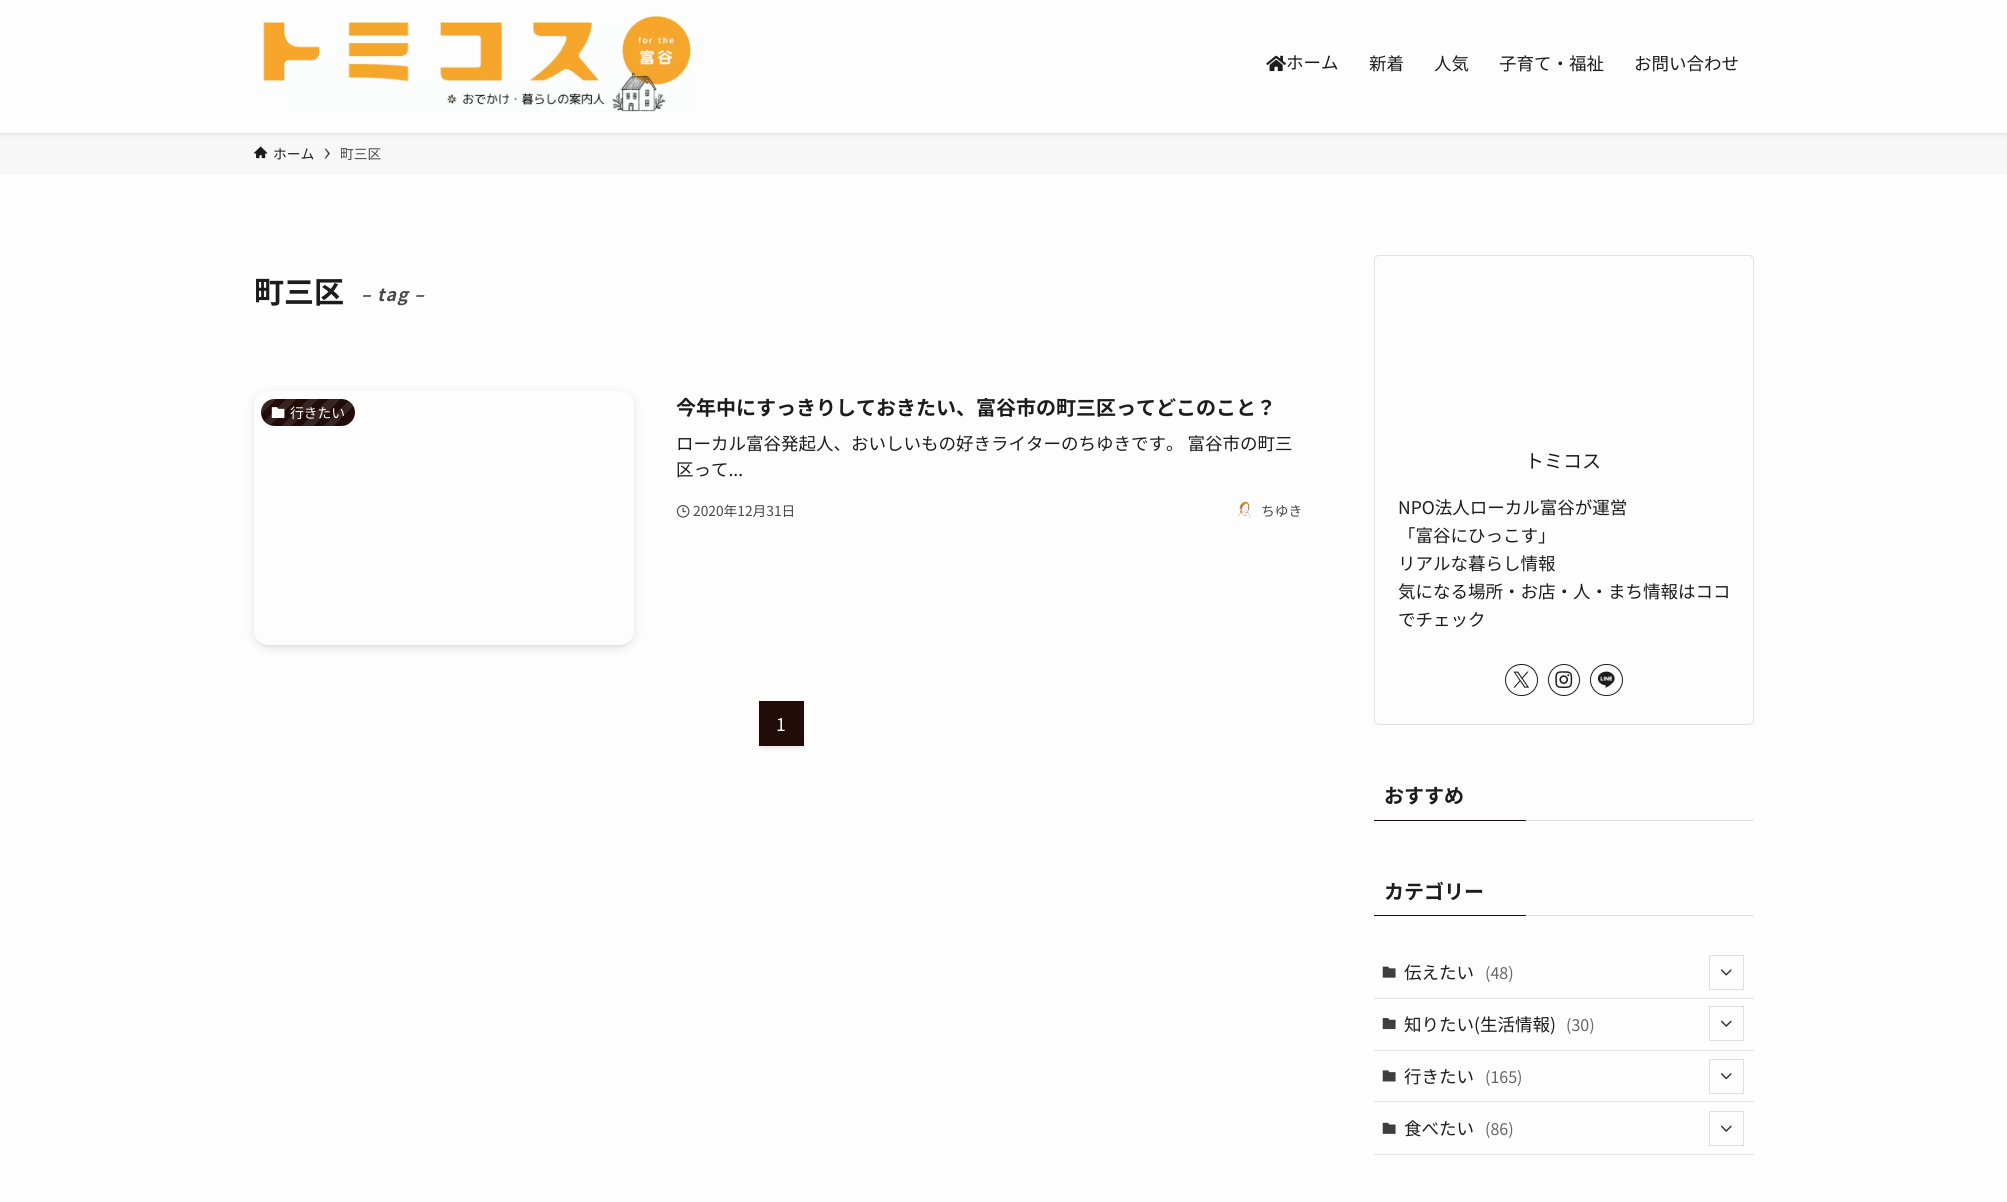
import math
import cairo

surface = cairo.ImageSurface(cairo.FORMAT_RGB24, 2007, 1202)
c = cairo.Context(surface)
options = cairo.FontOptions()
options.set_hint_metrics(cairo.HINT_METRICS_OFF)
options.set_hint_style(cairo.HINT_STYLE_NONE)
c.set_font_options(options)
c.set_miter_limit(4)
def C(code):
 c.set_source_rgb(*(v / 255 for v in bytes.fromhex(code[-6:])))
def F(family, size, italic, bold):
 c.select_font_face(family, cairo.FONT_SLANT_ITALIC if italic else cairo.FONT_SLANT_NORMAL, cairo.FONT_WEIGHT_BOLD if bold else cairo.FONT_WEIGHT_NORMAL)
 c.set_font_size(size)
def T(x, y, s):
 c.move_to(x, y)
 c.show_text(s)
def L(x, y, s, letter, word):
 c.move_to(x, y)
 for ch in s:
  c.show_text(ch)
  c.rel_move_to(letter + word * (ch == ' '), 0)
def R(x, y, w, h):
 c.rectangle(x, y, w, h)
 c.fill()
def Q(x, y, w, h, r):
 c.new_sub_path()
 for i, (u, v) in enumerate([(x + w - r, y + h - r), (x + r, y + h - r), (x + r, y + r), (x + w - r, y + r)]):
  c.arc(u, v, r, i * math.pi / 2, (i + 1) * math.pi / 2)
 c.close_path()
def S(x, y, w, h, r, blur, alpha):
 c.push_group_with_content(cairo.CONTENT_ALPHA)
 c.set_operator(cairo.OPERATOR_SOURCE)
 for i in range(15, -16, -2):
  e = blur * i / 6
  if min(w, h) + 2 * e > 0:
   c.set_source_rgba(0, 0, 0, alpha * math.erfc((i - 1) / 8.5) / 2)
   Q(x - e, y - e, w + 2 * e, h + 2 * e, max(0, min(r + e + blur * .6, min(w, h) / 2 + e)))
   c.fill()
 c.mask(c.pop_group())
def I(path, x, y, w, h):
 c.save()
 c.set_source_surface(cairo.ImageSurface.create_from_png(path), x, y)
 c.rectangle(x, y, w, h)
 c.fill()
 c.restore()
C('fdfdfd')
c.paint()
C('f7f7f7')
R(0,133,2007,42)
C('000000')
S(0,-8,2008,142,0,2.5,.12)
C('fdfdfd')
R(0,0,2007,133)
I('1.png',261,15,431,97)
I('2.png',1266,55,20,17)
F('Noto Sans JP',17.5,0,0)
C('1d1c1c')
T(1286,69,'ホーム')
T(1369,70,'新着')
T(1434,70,'人気')
T(1499,70,'子育て・福祉')
T(1634,70,'お問い合わせ')
I('3.png',253,146,15,13)
F('Noto Sans JP',13.75,0,0)
T(273,159,'ホーム')
C('494848')
c.new_path()
c.move_to(326,148.5)
c.line_to(324.5,148.5)
c.line_to(328,153.5)
c.line_to(324.5,158.5)
c.line_to(326,158.5)
c.line_to(330,153.5)
c.close_path()
c.fill()
T(340,159,'町三区')
F('Noto Sans JP',30,0,1)
C('1d1c1c')
T(254,303,'町三区')
F('Noto Sans JP',17.5,1,1)
C('494848')
L(361,301,'– tag –',1.25,0)
c.save()
c.set_fill_rule(cairo.FILL_RULE_EVEN_ODD)
c.new_path()
c.move_to(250,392)
c.line_to(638,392)
c.line_to(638,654)
c.line_to(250,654)
c.close_path()
c.move_to(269,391)
c.line_to(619,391)
c.curve_to(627.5,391,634,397.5,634,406)
c.line_to(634,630)
c.curve_to(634,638.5,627.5,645,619,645)
c.line_to(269,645)
c.curve_to(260.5,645,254,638.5,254,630)
c.line_to(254,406)
c.curve_to(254,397.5,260.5,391,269,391)
c.close_path()
c.clip()
C('000000')
S(259,401,370,244,10,2.5,.1)
c.restore()
c.save()
c.set_fill_rule(cairo.FILL_RULE_EVEN_ODD)
c.new_path()
c.move_to(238,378)
c.line_to(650,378)
c.line_to(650,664)
c.line_to(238,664)
c.close_path()
c.move_to(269,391)
c.line_to(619,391)
c.curve_to(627.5,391,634,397.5,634,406)
c.line_to(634,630)
c.curve_to(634,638.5,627.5,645,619,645)
c.line_to(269,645)
c.curve_to(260.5,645,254,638.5,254,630)
c.line_to(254,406)
c.curve_to(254,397.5,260.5,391,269,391)
c.close_path()
c.clip()
C('000000')
S(254,394,380,254,15,5,.1)
c.restore()
C('210c0a')
Q(261,399,94,27,13.5)
c.fill()
gradient = cairo.LinearGradient(338,443,275,379)
gradient.add_color_stop_rgba(0,1,1,1,.1)
gradient.add_color_stop_rgba(.08,1,1,1,.1)
gradient.add_color_stop_rgba(.08,1,1,1,0)
gradient.add_color_stop_rgba(.17,1,1,1,0)
gradient.add_color_stop_rgba(.17,1,1,1,.1)
gradient.add_color_stop_rgba(.25,1,1,1,.1)
gradient.add_color_stop_rgba(.25,1,1,1,0)
gradient.add_color_stop_rgba(.33,1,1,1,0)
gradient.add_color_stop_rgba(.33,1,1,1,.1)
gradient.add_color_stop_rgba(.42,1,1,1,.1)
gradient.add_color_stop_rgba(.42,1,1,1,0)
gradient.add_color_stop_rgba(.5,1,1,1,0)
gradient.add_color_stop_rgba(.5,1,1,1,.1)
gradient.add_color_stop_rgba(.58,1,1,1,.1)
gradient.add_color_stop_rgba(.58,1,1,1,0)
gradient.add_color_stop_rgba(.67,1,1,1,0)
gradient.add_color_stop_rgba(.67,1,1,1,.1)
gradient.add_color_stop_rgba(.75,1,1,1,.1)
gradient.add_color_stop_rgba(.75,1,1,1,0)
gradient.add_color_stop_rgba(.83,1,1,1,0)
gradient.add_color_stop_rgba(.83,1,1,1,.1)
gradient.add_color_stop_rgba(.92,1,1,1,.1)
gradient.add_color_stop_rgba(.92,1,1,1,0)
gradient.add_color_stop_rgba(1,0,0,0,0)
c.set_source(gradient)
Q(261,399,94,27,13.5)
c.fill()
I('4.png',271,407,14,11)
F('Noto Sans JP',13.75,0,0)
C('ffffff')
T(290,418,'行きたい')
F('Noto Sans JP',20,0,1)
C('1d1c1c')
T(676,415,'今年中にすっきりしておきたい、富谷市の町三区ってどこのこと？')
F('Noto Sans JP',17.5,0,0)
T(676,450,'ローカル富谷発起人、おいしいもの好きライターのちゆきです。 富谷市の町三')
T(676,476,'区って...')
I('5.png',676,505,14,13)
F('Noto Sans JP',13.75,0,0)
C('494848')
T(693,516,'2020年12月31日')
I('6.png',1238,501,13,18)
T(1261,516,'ちゆき')
C('000000')
S(764,711,35,35,0,2.5,.1)
S(759,704,45,45,0,2.5,.05)
C('210c0a')
R(759,701,45,45)
F('Noto Sans JP',17.5,0,0)
C('ffffff')
T(776,731,'1')
Q(1374.5,255.5,379,469,4.5)
C('e2e2e2')
c.set_line_width(1)
c.stroke()
F('Noto Sans JP',19,0,0)
C('1d1c1c')
T(1525,468,'トミコス')
F('Noto Sans JP',17.5,0,0)
T(1398,514,'NPO法人ローカル富谷が運営')
T(1398,542,'「富谷にひっこす」')
T(1398,570,'リアルな暮らし情報')
T(1398,598,'気になる場所・お店・人・まち情報はココ')
T(1398,626,'でチェック')
Q(1505.5,664.5,32,31,15.5)
c.stroke()
I('7.png',1513,671,16,17)
c.arc(1564,680,15.5,0,2 * math.pi)
c.stroke()
I('8.png',1555,671,18,17)
Q(1590.5,664.5,32,31,15.5)
c.stroke()
I('9.png',1597,671,18,17)
F('Noto Sans JP',20,0,1)
T(1384,803,'おすすめ')
C('210c0a')
R(1374,820,152,1)
C('e2e2e2')
R(1526,820,228,1)
C('1d1c1c')
T(1384,899,'カテゴリー')
C('210c0a')
R(1374,915,152,1)
C('e2e2e2')
R(1526,915,228,1)
R(1374,998,380,1)
I('10.png',1382,966,14,12)
F('Noto Sans JP',17.5,0,0)
C('1d1c1c')
T(1404,979,'伝えたい')
F('Noto Sans JP',16,0,0)
C('666666')
T(1485,979,'(48)')
I('11.png',1720,969,12,7)
c.rectangle(1709.5,955.5,34,34)
C('dfdfdf')
c.stroke()
C('e2e2e2')
R(1374,1050,380,1)
I('12.png',1382,1018,14,12)
F('Noto Sans JP',17.5,0,0)
C('1d1c1c')
T(1404,1031,'知りたい(生活情報)')
F('Noto Sans JP',16,0,0)
C('666666')
T(1566,1031,'(30)')
I('13.png',1720,1020,12,7)
c.rectangle(1709.5,1006.5,34,34)
C('dfdfdf')
c.stroke()
C('e2e2e2')
R(1374,1101,380,1)
I('14.png',1382,1070,14,12)
F('Noto Sans JP',17.5,0,0)
C('1d1c1c')
T(1404,1083,'行きたい')
F('Noto Sans JP',16,0,0)
C('666666')
T(1485,1083,'(165)')
I('15.png',1720,1073,12,7)
c.rectangle(1709.5,1059.5,34,34)
C('dfdfdf')
c.stroke()
C('e2e2e2')
R(1374,1154,380,1)
I('16.png',1382,1122,14,12)
F('Noto Sans JP',17.5,0,0)
C('1d1c1c')
T(1404,1135,'食べたい')
F('Noto Sans JP',16,0,0)
C('666666')
T(1485,1135,'(86)')
I('13.png',1720,1125,12,7)
c.rectangle(1709.5,1111.5,34,34)
C('dfdfdf')
c.stroke()
surface.write_to_png('o.png')
